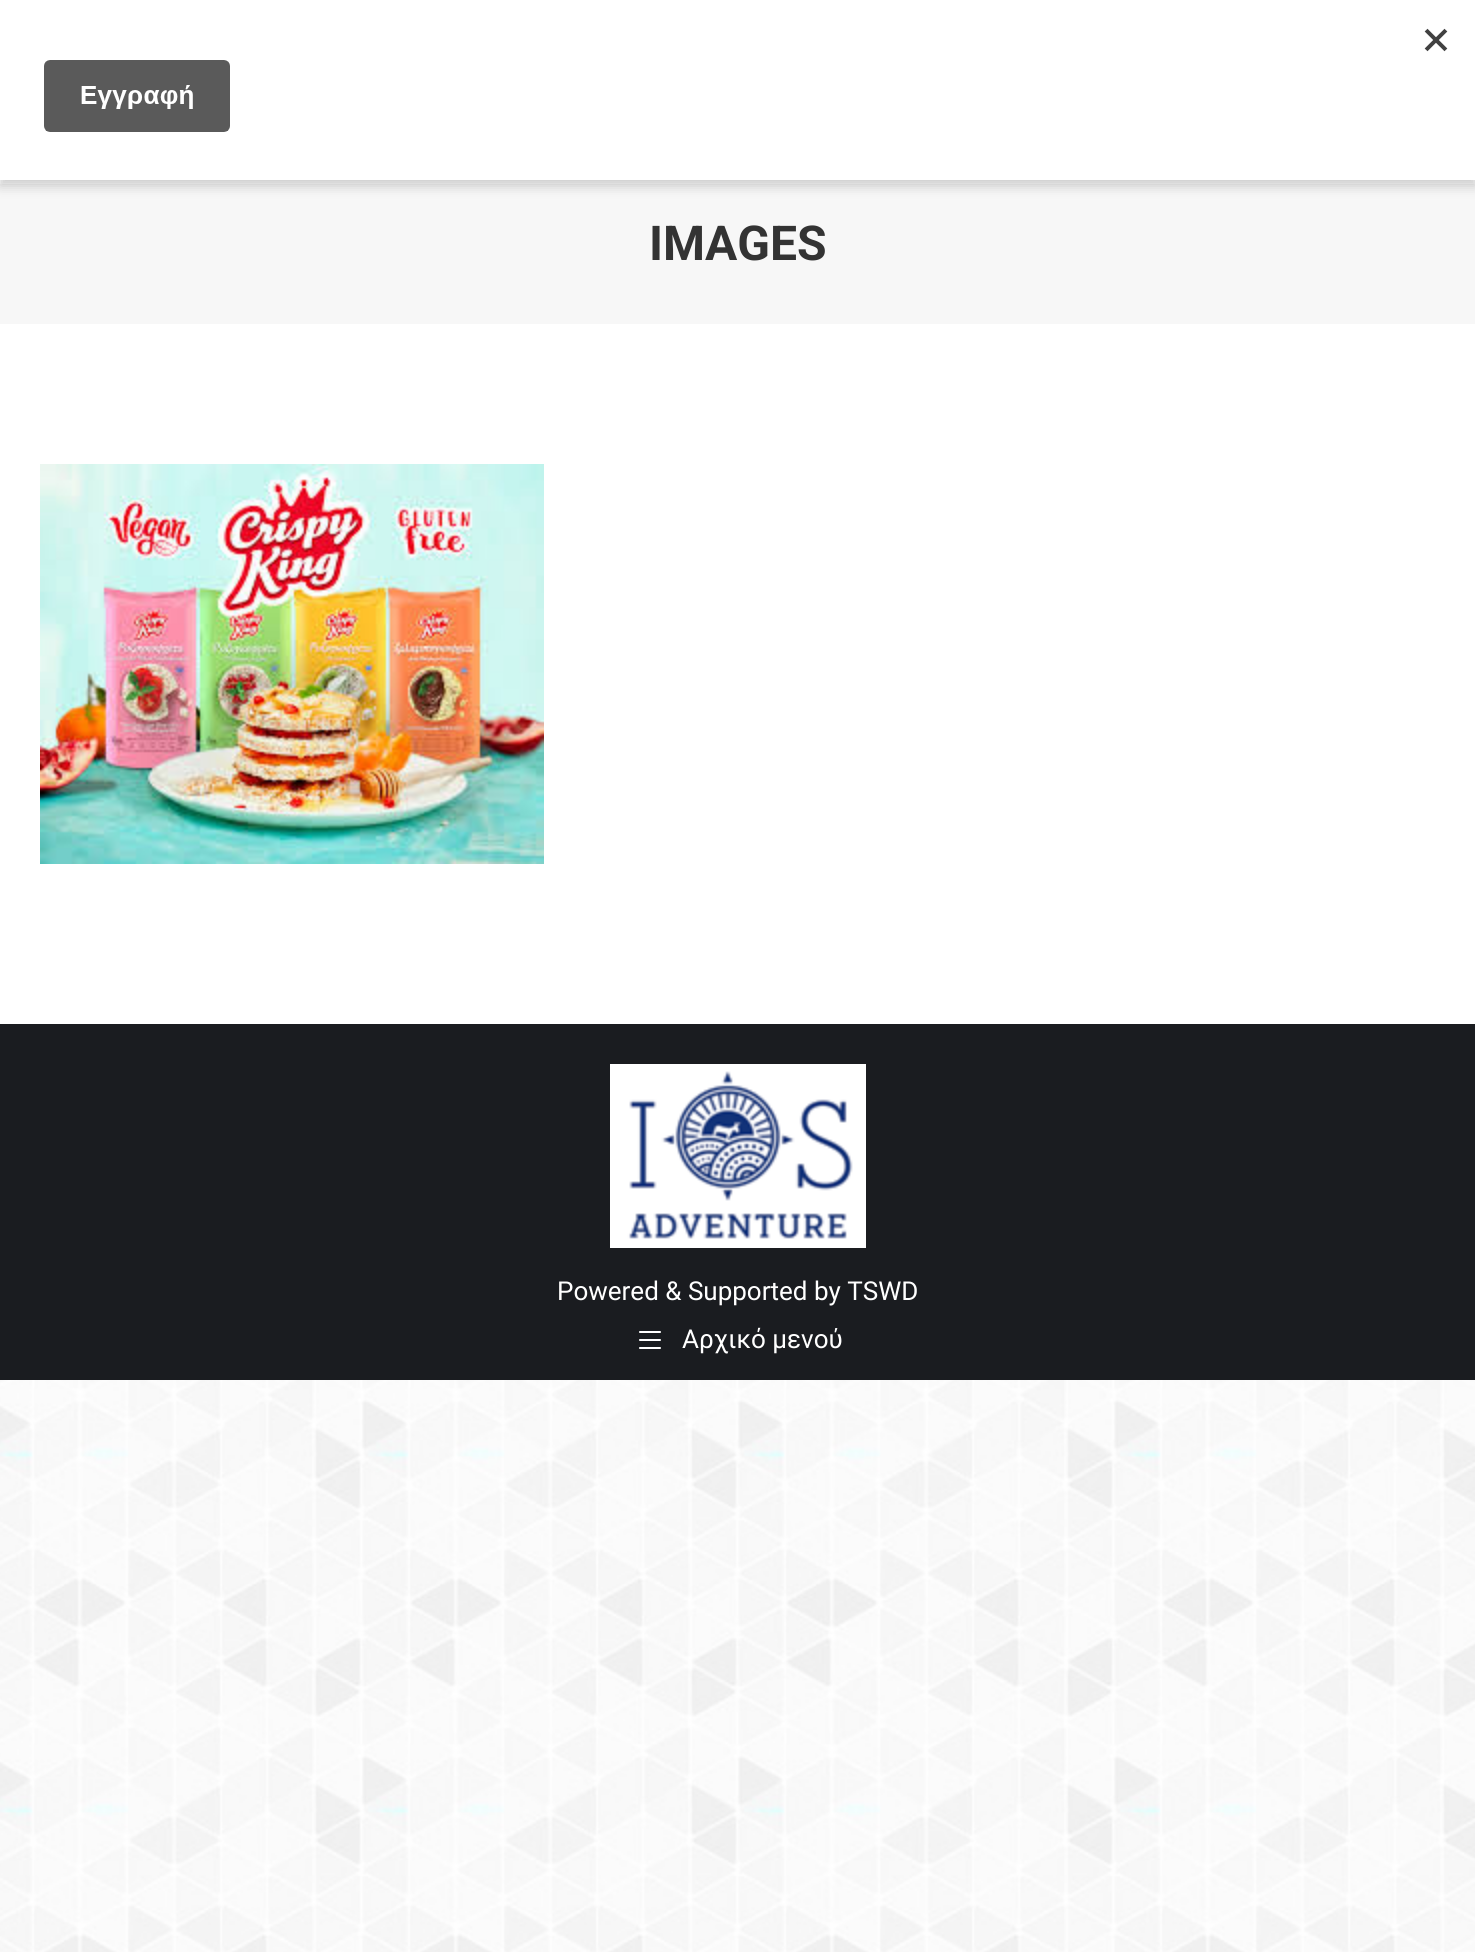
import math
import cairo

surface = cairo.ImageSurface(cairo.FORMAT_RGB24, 1475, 1952)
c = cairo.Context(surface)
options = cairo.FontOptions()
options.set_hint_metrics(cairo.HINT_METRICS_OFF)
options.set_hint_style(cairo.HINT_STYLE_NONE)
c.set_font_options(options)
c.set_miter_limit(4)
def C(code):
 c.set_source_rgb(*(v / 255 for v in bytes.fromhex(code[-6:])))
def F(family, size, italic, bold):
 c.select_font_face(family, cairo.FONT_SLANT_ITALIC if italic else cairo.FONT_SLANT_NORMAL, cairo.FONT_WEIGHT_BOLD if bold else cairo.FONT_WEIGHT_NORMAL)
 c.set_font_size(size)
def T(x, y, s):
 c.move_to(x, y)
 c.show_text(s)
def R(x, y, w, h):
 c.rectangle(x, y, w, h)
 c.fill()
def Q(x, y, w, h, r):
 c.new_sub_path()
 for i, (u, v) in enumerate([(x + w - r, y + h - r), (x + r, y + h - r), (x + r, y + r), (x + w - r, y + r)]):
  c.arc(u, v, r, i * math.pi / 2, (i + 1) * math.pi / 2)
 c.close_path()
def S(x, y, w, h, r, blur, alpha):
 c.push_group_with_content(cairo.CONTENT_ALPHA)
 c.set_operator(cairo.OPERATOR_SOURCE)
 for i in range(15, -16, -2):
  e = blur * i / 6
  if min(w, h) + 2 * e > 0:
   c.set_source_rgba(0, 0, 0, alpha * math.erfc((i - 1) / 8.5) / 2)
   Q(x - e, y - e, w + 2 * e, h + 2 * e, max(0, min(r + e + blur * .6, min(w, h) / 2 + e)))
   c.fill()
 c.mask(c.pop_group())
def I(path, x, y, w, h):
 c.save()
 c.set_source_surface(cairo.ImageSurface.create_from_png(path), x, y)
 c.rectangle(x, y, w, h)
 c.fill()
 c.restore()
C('ffffff')
c.paint()
I('1.png',0,1380,1475,572)
C('f7f7f7')
R(0,184,1475,140)
C('000000')
S(0,6,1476,180,0,6,.2)
C('ffffff')
R(0,0,1475,180)
I('2.png',44,28,1404,104)
F('Roboto',48,0,1)
C('333333')
T(649,260,'IMAGES')
I('3.png',40,464,504,400)
C('1a1c20')
R(0,1024,1475,356)
I('4.png',610,1064,256,184)
F('Roboto',26,0,0)
C('ffffff')
T(557,1300,'Powered & Supported by TSWD')
I('5.png',639,1331,22,18)
T(682,1348,'Αρχικό μενού')
surface.write_to_png('o.png')
